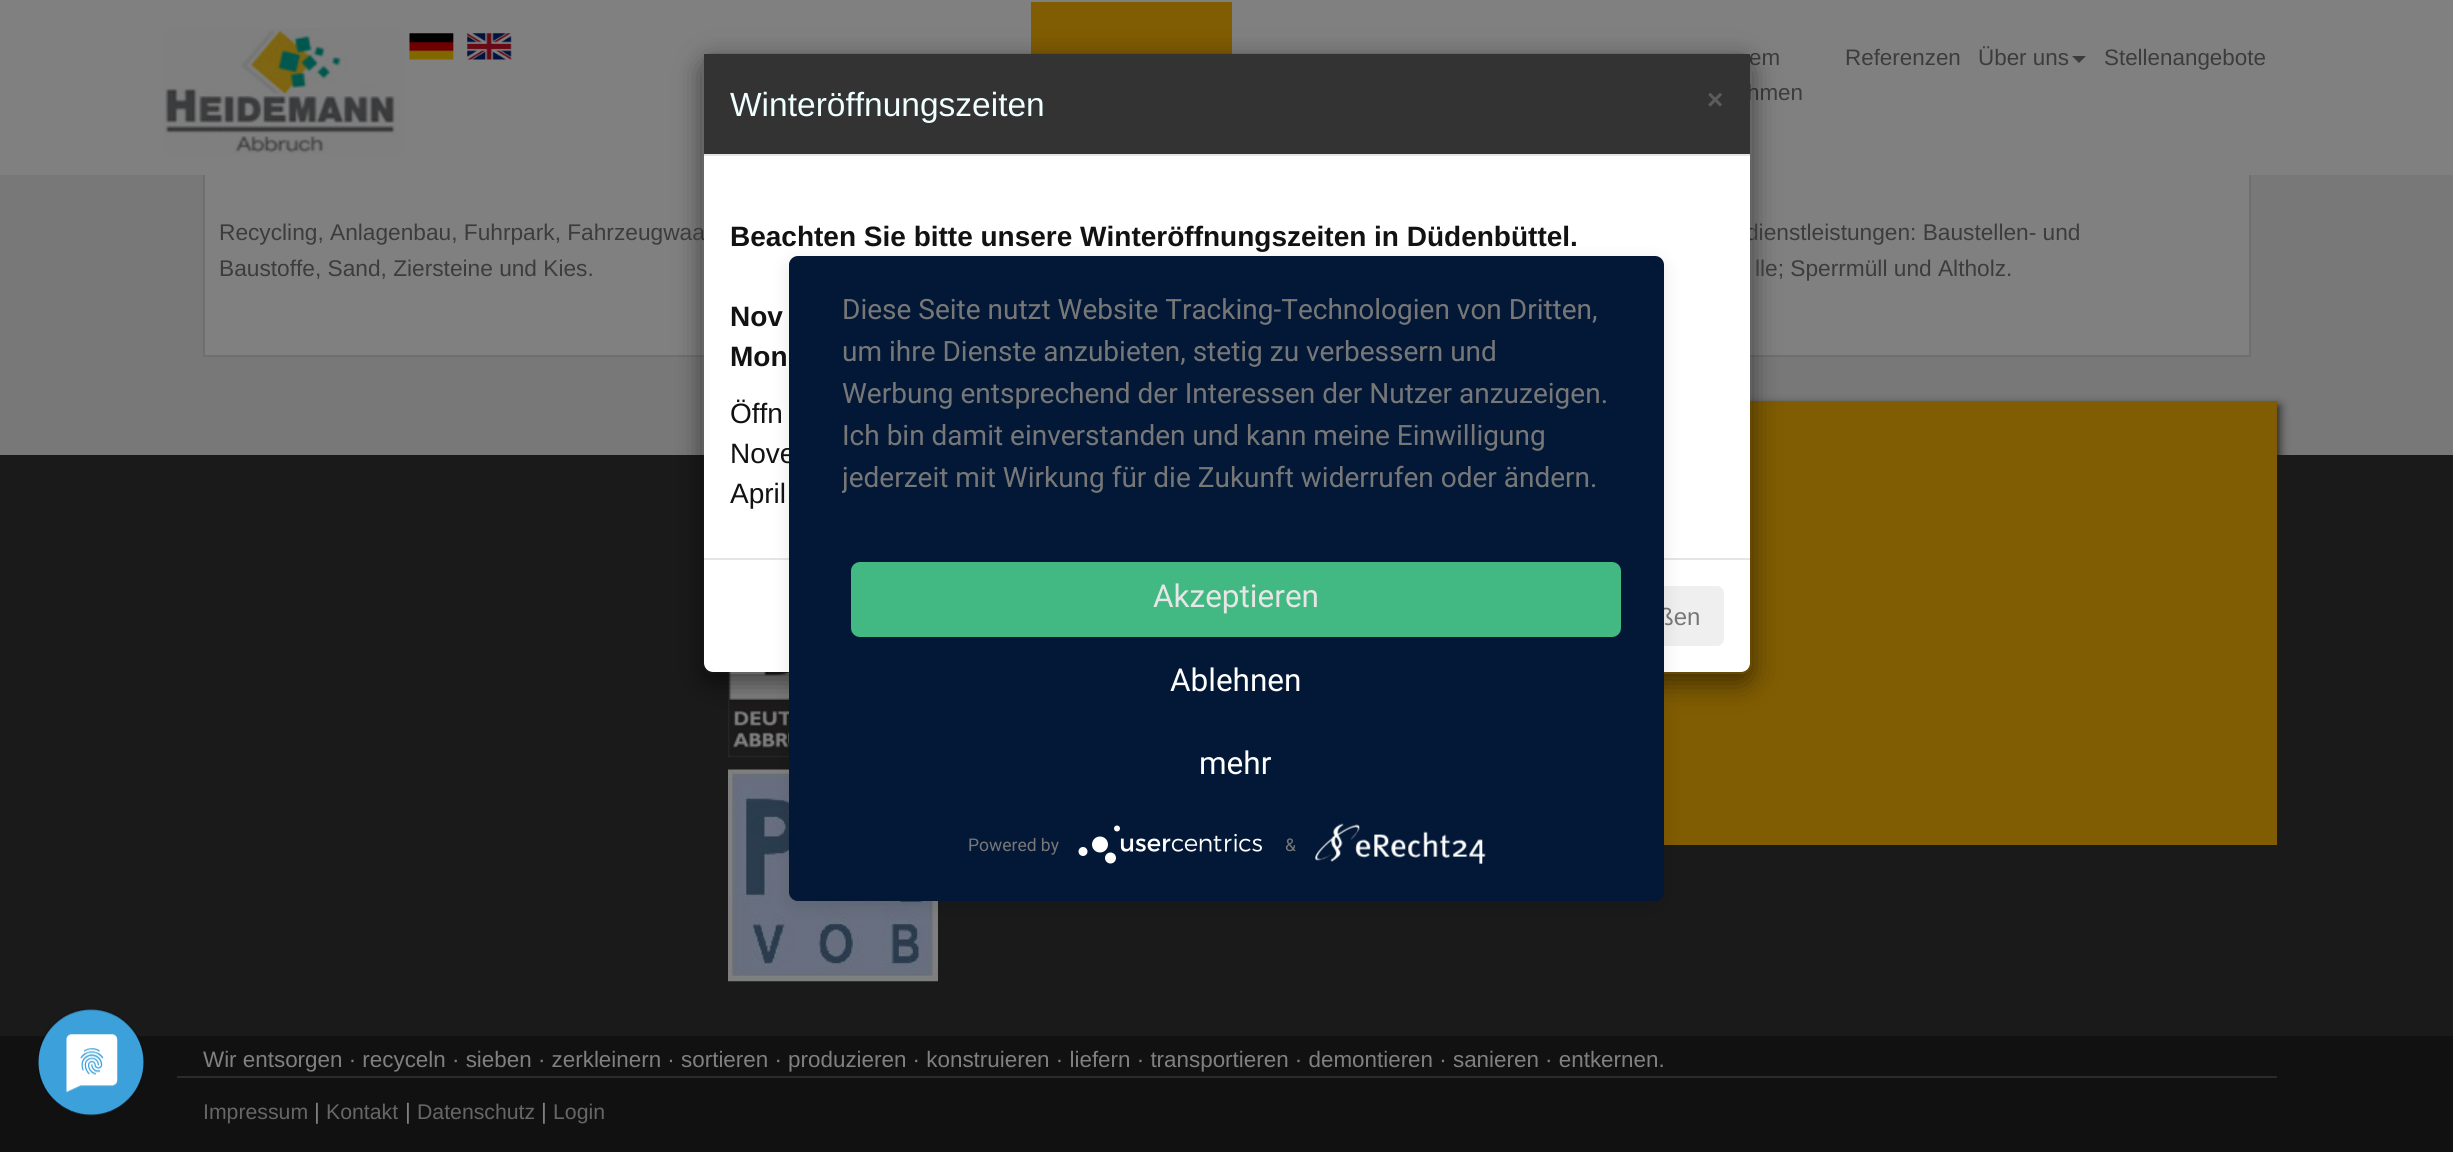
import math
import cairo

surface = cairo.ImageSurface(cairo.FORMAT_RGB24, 2453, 1152)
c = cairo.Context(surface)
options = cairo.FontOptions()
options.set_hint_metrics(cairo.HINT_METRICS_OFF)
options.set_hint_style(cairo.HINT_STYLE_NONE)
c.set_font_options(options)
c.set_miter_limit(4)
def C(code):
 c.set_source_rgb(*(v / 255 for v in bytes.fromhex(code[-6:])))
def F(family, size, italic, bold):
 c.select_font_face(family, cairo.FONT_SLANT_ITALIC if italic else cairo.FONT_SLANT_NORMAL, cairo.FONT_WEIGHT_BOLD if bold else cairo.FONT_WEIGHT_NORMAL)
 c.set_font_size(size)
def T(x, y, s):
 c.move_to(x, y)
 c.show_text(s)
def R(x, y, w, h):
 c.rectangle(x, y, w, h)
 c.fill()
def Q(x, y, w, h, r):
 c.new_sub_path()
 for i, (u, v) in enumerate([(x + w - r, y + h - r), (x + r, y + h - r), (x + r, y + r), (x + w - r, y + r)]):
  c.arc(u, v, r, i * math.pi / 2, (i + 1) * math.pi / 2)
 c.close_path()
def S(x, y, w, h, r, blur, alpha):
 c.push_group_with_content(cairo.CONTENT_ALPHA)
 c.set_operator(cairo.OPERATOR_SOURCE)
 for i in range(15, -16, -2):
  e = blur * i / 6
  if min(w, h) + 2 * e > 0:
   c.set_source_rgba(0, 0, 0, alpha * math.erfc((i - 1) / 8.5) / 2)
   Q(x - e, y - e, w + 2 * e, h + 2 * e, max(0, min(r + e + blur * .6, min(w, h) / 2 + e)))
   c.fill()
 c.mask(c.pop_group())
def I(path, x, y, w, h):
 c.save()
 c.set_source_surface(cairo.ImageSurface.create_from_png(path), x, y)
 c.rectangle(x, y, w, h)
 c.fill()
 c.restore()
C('787878')
c.paint()
C('808080')
R(205,175,499,180)
c.rectangle(204,-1,646,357)
C('6f6f6f')
c.stroke()
C('808080')
R(1750,175,499,180)
c.rectangle(1604,-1,646,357)
C('6f6f6f')
c.stroke()
C('808080')
R(0,0,2453,175)
I('1.png',164,28,240,127)
I('2.png',409,33,45,27)
I('3.png',467,33,45,27)
C('805c02')
R(1031,2,201,52)
F('Liberation Sans',22.4,0,0)
C('3c3c3c')
T(1749,65,'em')
T(1747,100,'hmen')
T(1845,65,'Referenzen')
T(1978,65,'Über uns')
c.new_path()
c.move_to(2072,56)
c.line_to(2086,56)
c.line_to(2079,63)
c.close_path()
c.fill()
T(2104,65,'Stellenangebote')
C('1a1a1a')
R(0,455,2453,581)
I('4.png',728,672,61,86)
C('1a1a1a')
S(1229,406,1050,445,0,5,1)
C('805c02')
R(1664,401,613,444)
c.save()
c.set_fill_rule(cairo.FILL_RULE_EVEN_ODD)
c.new_path()
c.move_to(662,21)
c.line_to(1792,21)
c.line_to(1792,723)
c.line_to(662,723)
c.close_path()
c.move_to(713,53)
c.line_to(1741,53)
c.curve_to(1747,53,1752,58,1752,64)
c.line_to(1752,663)
c.curve_to(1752,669,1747,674,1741,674)
c.line_to(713,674)
c.curve_to(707,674,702,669,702,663)
c.line_to(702,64)
c.curve_to(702,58,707,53,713,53)
c.close_path()
c.clip()
C('000000')
S(702,61,1050,622,11,13,.5)
c.restore()
F('Liberation Sans',22.7,0,0)
C('3c3c3c')
T(219,240,'Recycling, Anlagenbau, Fuhrpark, Fahrzeugwaa')
T(1746,240,'dienstleistungen: Baustellen- und')
C('ffffff')
Q(704,54,1046,618,9)
c.fill()
Q(703,54,1048,619,10)
c.set_source_rgba(0,0,0,0.2)
c.stroke()
C('333333')
R(704,54,1046,100)
C('e5e5e5')
R(704,154,1046,2)
F('Liberation Sans',33.5,0,0)
C('f0ffff')
T(730,116,'Winteröffnungszeiten')
F('Liberation Sans',28,0,1)
C('5c5c5c')
T(1707,109,'×')
C('121212')
T(730,246,'Beachten Sie bitte unsere Winteröffnungszeiten in Düdenbüttel.')
T(730,326,'Nov')
T(730,366,'Mon')
F('Liberation Sans',28,0,0)
T(730,423,'Öffn')
T(730,463,'Nove')
T(730,503,'April')
C('e5e5e5')
R(704,558,1046,2)
C('efefef')
Q(1570,586,154,60,7)
c.fill()
F('Liberation Sans',24,0,0)
C('777777')
T(1659,625,'ßen')
I('5.png',728,769,210,213)
C('111111')
R(0,1036,2453,116)
C('2b2b2b')
R(177,1076,2100,2)
F('Liberation Sans',22.4,0,0)
C('808080')
T(203,1067,'Wir entsorgen · recyceln · sieben · zerkleinern · sortieren · produzieren · konstruieren · liefern · transportieren · demontieren · sanieren · entkernen.')
F('Liberation Sans',21.25,0,0)
C('666666')
T(203,1119,'Impressum')
F('Liberation Sans',22.4,0,0)
C('808080')
T(314,1119,'|')
F('Liberation Sans',21.25,0,0)
C('666666')
T(326,1119,'Kontakt')
F('Liberation Sans',22.4,0,0)
C('808080')
T(405,1119,'|')
F('Liberation Sans',21.25,0,0)
C('666666')
T(417,1119,'Datenschutz')
F('Liberation Sans',22.4,0,0)
C('808080')
T(541,1119,'|')
F('Liberation Sans',21.25,0,0)
C('666666')
T(553,1119,'Login')
F('Liberation Sans',22.7,0,0)
C('3c3c3c')
T(219,276,'Baustoffe, Sand, Ziersteine und Kies.')
T(1755,276,'lle; Sperrmüll und Altholz.')
C('000000')
S(789,261,875,646,9,9,.1)
c.save()
Q(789,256,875,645,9)
c.clip()
S(789,266,875,646,0,31.5,.3)
c.restore()
C('021836')
Q(789,256,875,645,9)
c.fill()
F('Roboto',28,0,0)
C('777777')
T(842,319,'Diese Seite nutzt Website Tracking-Technologien von Dritten,')
T(842,361,'um ihre Dienste anzubieten, stetig zu verbessern und')
T(842,403,'Werbung entsprechend der Interessen der Nutzer anzuzeigen.')
T(842,445,'Ich bin damit einverstanden und kann meine Einwilligung')
c.save()
c.rectangle(842,291,770,245)
c.clip()
T(842,487,'jederzeit mit Wirkung für die Zukunft widerrufen oder ändern.')
c.restore()
C('42b983')
Q(851,562,770,75,9)
c.fill()
F('Roboto',31.5,0,0)
C('e6e6e6')
T(1153,607,'Akzeptieren')
C('ffffff')
T(1170,691,'Ablehnen')
T(1199,774,'mehr')
F('Roboto',17.5,0,0)
C('777777')
T(968,851,'Powered by')
I('6.png',1078,825,184,39)
T(1285,851,'&')
I('7.png',1315,823,171,41)
I('8.png',38,1009,106,107)
surface.write_to_png('o.png')
